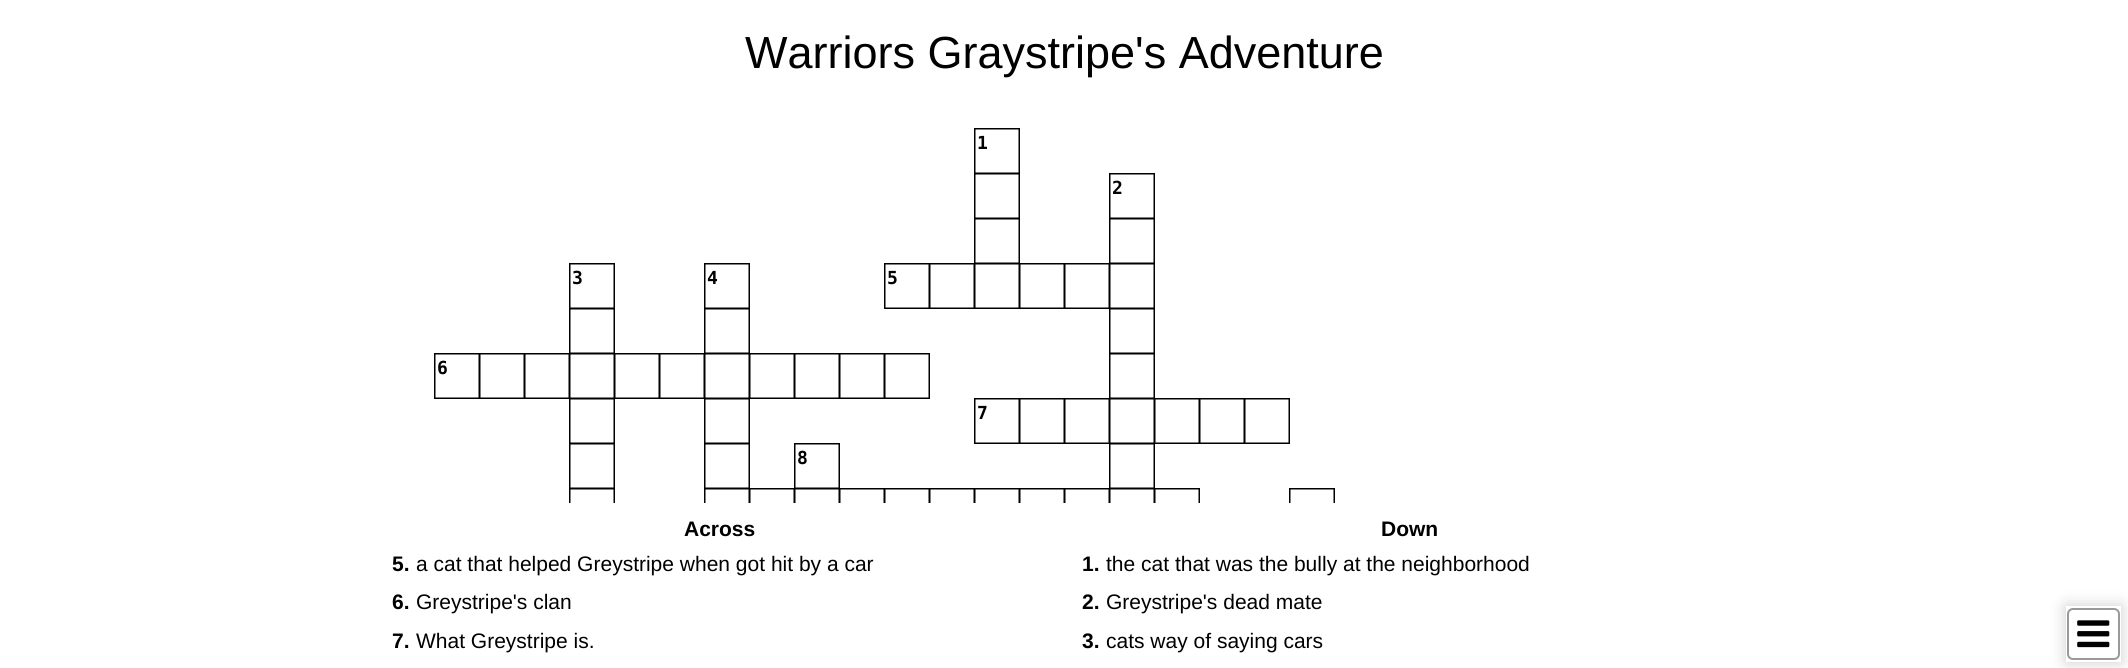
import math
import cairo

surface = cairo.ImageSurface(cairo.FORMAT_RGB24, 2128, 668)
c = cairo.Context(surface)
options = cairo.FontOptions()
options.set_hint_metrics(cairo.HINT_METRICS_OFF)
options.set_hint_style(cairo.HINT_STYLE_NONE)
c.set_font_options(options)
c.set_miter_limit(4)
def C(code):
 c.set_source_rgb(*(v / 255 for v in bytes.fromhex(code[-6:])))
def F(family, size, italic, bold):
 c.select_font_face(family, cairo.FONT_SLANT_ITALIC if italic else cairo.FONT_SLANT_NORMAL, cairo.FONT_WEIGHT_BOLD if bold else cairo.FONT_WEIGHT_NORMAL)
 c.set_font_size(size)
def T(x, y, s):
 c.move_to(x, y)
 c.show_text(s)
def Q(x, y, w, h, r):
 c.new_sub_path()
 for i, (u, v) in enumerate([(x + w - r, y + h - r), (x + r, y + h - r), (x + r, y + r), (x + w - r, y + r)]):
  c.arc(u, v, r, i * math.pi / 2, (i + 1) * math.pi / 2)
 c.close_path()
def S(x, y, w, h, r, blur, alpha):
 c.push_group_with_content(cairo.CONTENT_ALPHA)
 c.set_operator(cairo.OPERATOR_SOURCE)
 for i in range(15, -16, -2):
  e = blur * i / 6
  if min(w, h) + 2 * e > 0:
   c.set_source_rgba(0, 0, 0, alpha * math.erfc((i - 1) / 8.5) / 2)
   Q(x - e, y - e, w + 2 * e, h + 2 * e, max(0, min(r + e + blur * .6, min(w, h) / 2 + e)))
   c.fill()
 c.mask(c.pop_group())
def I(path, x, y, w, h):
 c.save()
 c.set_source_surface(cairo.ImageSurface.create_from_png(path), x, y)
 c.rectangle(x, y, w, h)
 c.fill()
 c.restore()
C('ffffff')
c.paint()
F('Liberation Sans',45,0,0)
C('000000')
T(745,68,'Warriors Graystripe\'s Adventure')
I('1.png',434,128,901,375)
F('DejaVu Sans Mono',18,0,1)
T(977,149,'1')
T(1112,194,'2')
T(572,284,'3')
T(707,284,'4')
T(887,284,'5')
T(437,374,'6')
T(977,419,'7')
T(797,464,'8')
F('Liberation Sans',21,0,1)
T(684,536,'Across')
T(392,571,'5.')
F('Liberation Sans',21,0,0)
T(416,571,'a cat that helped Greystripe when got hit by a car')
F('Liberation Sans',21,0,1)
T(392,609,'6.')
F('Liberation Sans',21,0,0)
T(416,609,'Greystripe\'s clan')
F('Liberation Sans',21,0,1)
T(392,648,'7.')
F('Liberation Sans',21,0,0)
T(416,648,'What Greystripe is.')
F('Liberation Sans',21,0,1)
T(1381,536,'Down')
T(1082,571,'1.')
F('Liberation Sans',21,0,0)
T(1106,571,'the cat that was the bully at the neighborhood')
F('Liberation Sans',21,0,1)
T(1082,609,'2.')
F('Liberation Sans',21,0,0)
T(1106,609,'Greystripe\'s dead mate')
F('Liberation Sans',21,0,1)
T(1082,648,'3.')
F('Liberation Sans',21,0,0)
T(1106,648,'cats way of saying cars')
c.save()
c.set_fill_rule(cairo.FILL_RULE_EVEN_ODD)
c.new_path()
c.move_to(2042,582)
c.line_to(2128,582)
c.line_to(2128,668)
c.line_to(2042,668)
c.close_path()
c.move_to(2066,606)
c.line_to(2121,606)
c.line_to(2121,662)
c.line_to(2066,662)
c.close_path()
c.clip()
C('cccccc')
S(2066,606,55,56,0,7.5,1)
c.restore()
I('2.png',2077,620,33,28)
Q(2068,609,51,50,5)
C('999999')
c.stroke()
surface.write_to_png('o.png')
